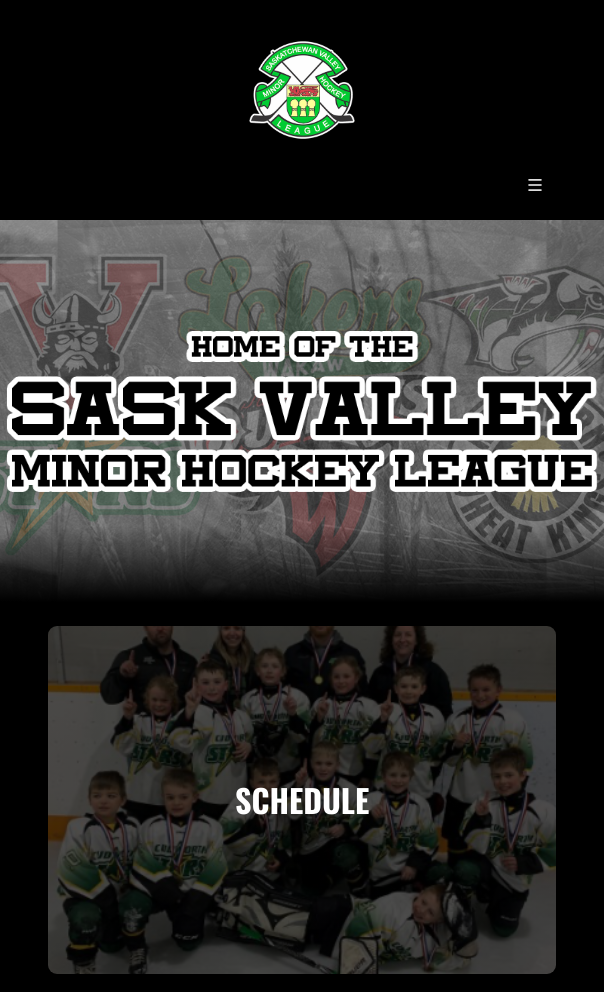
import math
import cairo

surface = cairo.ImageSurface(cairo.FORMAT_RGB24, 604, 992)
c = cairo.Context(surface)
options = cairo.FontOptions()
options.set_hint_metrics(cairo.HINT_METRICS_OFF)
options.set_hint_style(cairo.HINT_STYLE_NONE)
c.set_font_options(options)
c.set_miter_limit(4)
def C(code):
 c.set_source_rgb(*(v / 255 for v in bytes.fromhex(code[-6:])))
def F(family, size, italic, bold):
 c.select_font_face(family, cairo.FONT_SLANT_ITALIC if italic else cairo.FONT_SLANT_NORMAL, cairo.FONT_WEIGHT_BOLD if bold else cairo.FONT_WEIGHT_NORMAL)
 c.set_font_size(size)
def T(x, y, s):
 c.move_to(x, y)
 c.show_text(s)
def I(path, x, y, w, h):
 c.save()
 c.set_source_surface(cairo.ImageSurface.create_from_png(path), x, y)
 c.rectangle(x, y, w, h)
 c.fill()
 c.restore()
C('000000')
c.paint()
I('1.png',249,41,106,98)
I('2.png',528,179,14,12)
I('3.png',0,220,604,382)
I('4.png',6,331,592,161)
I('5.png',48,626,508,348)
F('Oswald',32,0,1)
C('ffffff')
T(235,814,'SCHEDULE')
surface.write_to_png('o.png')
